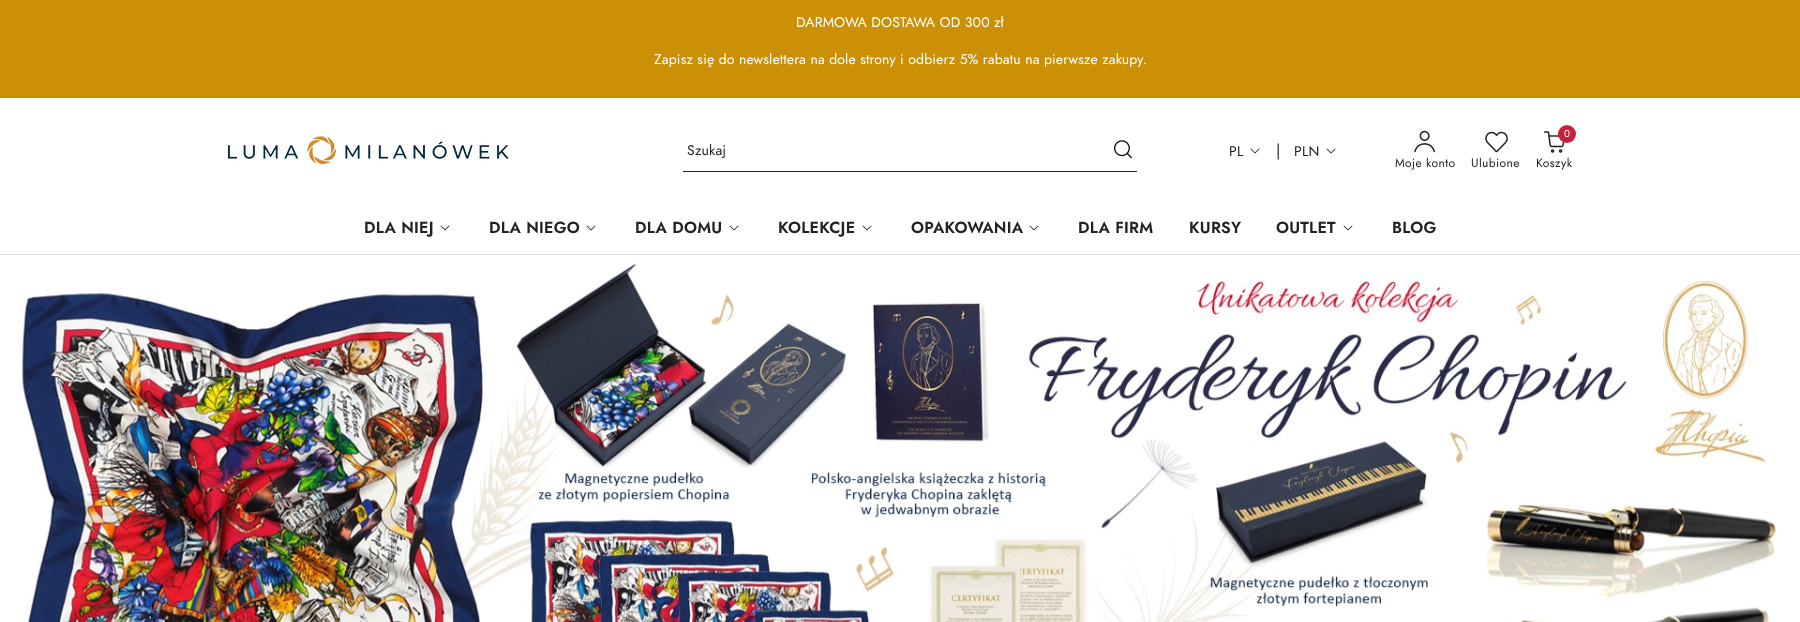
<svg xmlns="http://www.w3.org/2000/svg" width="1800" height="622">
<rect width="100%" height="100%" fill="#fff"/>
<rect width="1800" height="98" fill="#cb9006"/>
<text x="796" y="27" style="font-family:Jost;font-size:14px;letter-spacing:0.15px;fill:#fff">DARMOWA DOSTAWA OD 300 zł</text>
<text x="654" y="64" style="font-family:Jost;font-size:14px;letter-spacing:0.15px;fill:#fff">Zapisz się do newslettera na dole strony i odbierz 5% rabatu na pierwsze zakupy.</text>
<image x="227" y="136" width="282" height="29" href="media/1.png"/>
<rect x="683" y="171" width="454" height="1" fill="#222"/>
<text x="687" y="155" style="font-family:Jost;font-size:14px;letter-spacing:0.25px;fill:#222">Szukaj</text>
<image x="1114" y="140" width="18" height="19" href="media/2.png"/>
<text x="1229" y="156" style="font-family:Jost;font-size:14px;letter-spacing:0.25px;fill:#222">PL</text>
<image x="1250" y="148" width="10" height="6" href="media/3.png"/>
<text x="1276" y="156" style="font-family:Jost;font-size:16px;fill:#222">|</text>
<text x="1294" y="156" style="font-family:Jost;font-size:14px;letter-spacing:0.25px;fill:#222">PLN</text>
<image x="1326" y="148" width="10" height="6" href="media/3.png"/>
<image x="1414" y="130" width="21" height="23" href="media/4.png"/>
<text x="1395" y="167" style="font-family:Jost;font-size:12px;letter-spacing:0.4px;fill:#222">Moje konto</text>
<image x="1485" y="131" width="23" height="22" href="media/5.png"/>
<text x="1471" y="167" style="font-family:Jost;font-size:12px;letter-spacing:0.4px;fill:#222">Ulubione</text>
<image x="1543" y="131" width="22" height="22" href="media/6.png"/>
<circle cx="1567" cy="134" r="9" fill="#c5203d"/>
<text x="1564" y="137" style="font-family:Jost;font-size:10px;fill:#fff">0</text>
<text x="1536" y="167" style="font-family:Jost;font-size:12px;letter-spacing:0.4px;fill:#222">Koszyk</text>
<rect y="254" width="1800" height="1" fill="#ddd"/>
<text x="364" y="233" style="font-family:Jost;font-size:16px;font-weight:600;letter-spacing:0.25px;fill:#222">DLA NIEJ</text>
<image x="440" y="225" width="10" height="6" href="media/3.png"/>
<text x="489" y="233" style="font-family:Jost;font-size:16px;font-weight:600;letter-spacing:0.25px;fill:#222">DLA NIEGO</text>
<image x="586" y="225" width="10" height="6" href="media/3.png"/>
<text x="635" y="233" style="font-family:Jost;font-size:16px;font-weight:600;letter-spacing:0.25px;fill:#222">DLA DOMU</text>
<image x="729" y="225" width="10" height="6" href="media/3.png"/>
<text x="778" y="233" style="font-family:Jost;font-size:16px;font-weight:600;letter-spacing:0.25px;fill:#222">KOLEKCJE</text>
<image x="862" y="225" width="10" height="6" href="media/3.png"/>
<text x="911" y="233" style="font-family:Jost;font-size:16px;font-weight:600;letter-spacing:0.25px;fill:#222">OPAKOWANIA</text>
<image x="1029" y="225" width="10" height="6" href="media/3.png"/>
<text x="1078" y="233" style="font-family:Jost;font-size:16px;font-weight:600;letter-spacing:0.25px;fill:#222">DLA FIRM</text>
<text x="1189" y="233" style="font-family:Jost;font-size:16px;font-weight:600;letter-spacing:0.25px;fill:#222">KURSY</text>
<text x="1276" y="233" style="font-family:Jost;font-size:16px;font-weight:600;letter-spacing:0.25px;fill:#222">OUTLET</text>
<image x="1343" y="225" width="10" height="6" href="media/3.png"/>
<text x="1392" y="233" style="font-family:Jost;font-size:16px;font-weight:600;letter-spacing:0.25px;fill:#222">BLOG</text>
<image x="21" y="263" width="1756" height="359" href="media/7.png"/>
</svg>
